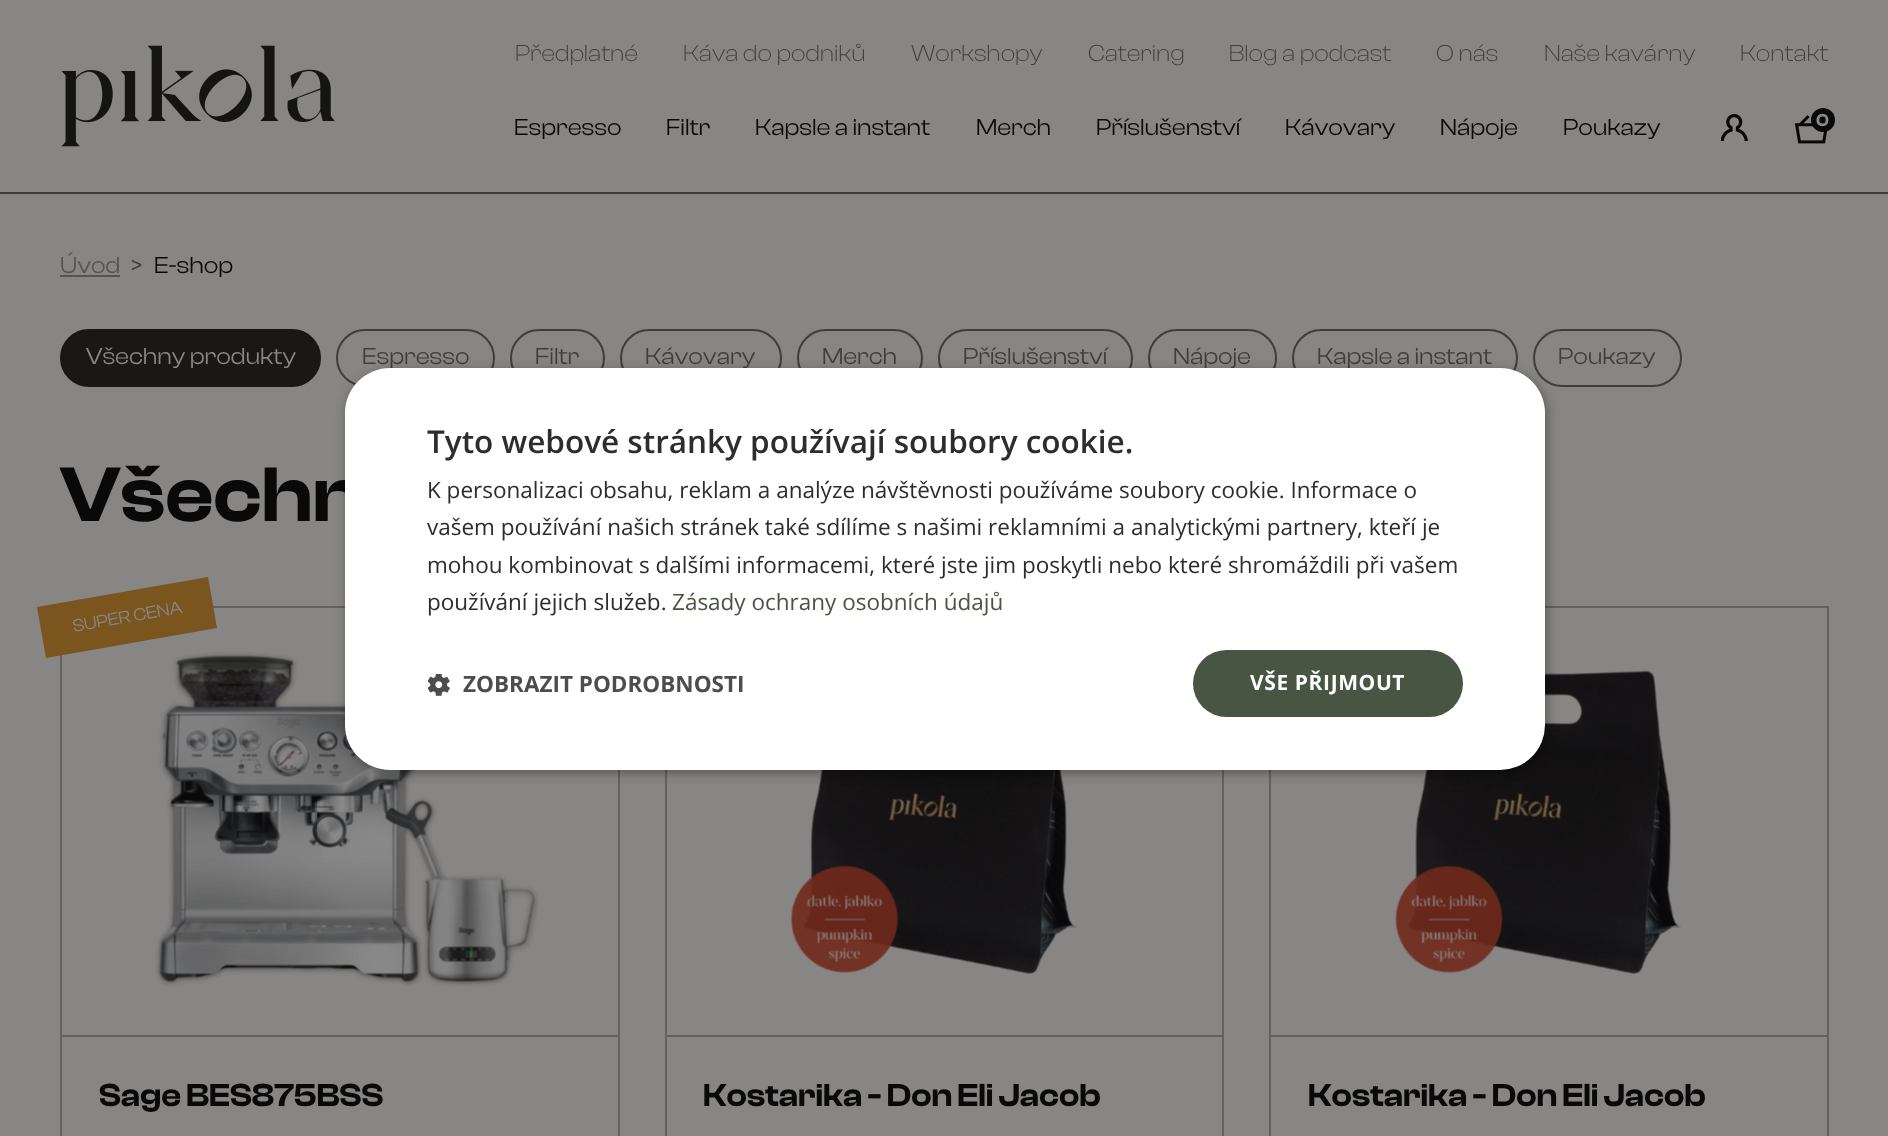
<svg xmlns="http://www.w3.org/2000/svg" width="1888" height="1136">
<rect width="100%" height="100%" fill="#888684"/>
<rect y="192" width="1888" height="2" fill="#423d38"/>
<image x="61" y="45" width="274" height="102" href="media/1.png"/>
<text x="515" y="61" style="font-family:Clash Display;font-size:24px;font-weight:300;fill:#423d38">Předplatné</text>
<text x="683" y="61" style="font-family:Clash Display;font-size:24px;font-weight:300;fill:#423d38">Káva do podniků</text>
<text x="911" y="61" style="font-family:Clash Display;font-size:24px;font-weight:300;fill:#423d38">Workshopy</text>
<text x="1088" y="61" style="font-family:Clash Display;font-size:24px;font-weight:300;fill:#423d38">Catering</text>
<text x="1229" y="61" style="font-family:Clash Display;font-size:24px;font-weight:300;fill:#423d38">Blog a podcast</text>
<text x="1436" y="61" style="font-family:Clash Display;font-size:24px;font-weight:300;fill:#423d38">O nás</text>
<text x="1544" y="61" style="font-family:Clash Display;font-size:24px;font-weight:300;fill:#423d38">Naše kavárny</text>
<text x="1740" y="61" style="font-family:Clash Display;font-size:24px;font-weight:300;fill:#423d38">Kontakt</text>
<text x="514" y="135" style="font-family:Clash Display;font-size:24px;fill:#090909">Espresso</text>
<text x="666" y="135" style="font-family:Clash Display;font-size:24px;fill:#090909">Filtr</text>
<text x="755" y="135" style="font-family:Clash Display;font-size:24px;fill:#090909">Kapsle a instant</text>
<text x="976" y="135" style="font-family:Clash Display;font-size:24px;fill:#090909">Merch</text>
<text x="1096" y="135" style="font-family:Clash Display;font-size:24px;fill:#090909">Příslušenství</text>
<text x="1285" y="135" style="font-family:Clash Display;font-size:24px;fill:#090909">Kávovary</text>
<text x="1440" y="135" style="font-family:Clash Display;font-size:24px;fill:#090909">Nápoje</text>
<text x="1563" y="135" style="font-family:Clash Display;font-size:24px;fill:#090909">Poukazy</text>
<image x="1721" y="114" width="27" height="27" href="media/2.png"/>
<image x="1794" y="115" width="34" height="29" href="media/3.png"/>
<circle cx="1823" cy="120" r="12" fill="#090909"/>
<text x="1816" y="126" style="font-family:Clash Display;font-size:18px;font-weight:600;fill:#888">0</text>
<text x="60" y="273" style="font-family:Clash Display;font-size:24px;fill:#57534f">Úvod</text>
<rect x="60" y="275" width="60" height="2" fill="#57534f"/>
<text x="131" y="273" style="font-family:Clash Display;font-size:24px;fill:#423d38">&gt;</text>
<text x="154" y="273" style="font-family:Clash Display;font-size:24px;fill:#090909">E-shop</text>
<rect x="61" y="330" width="259" height="56" rx="28" fill="#1a1816" stroke="#1a1816" stroke-width="2"/>
<text x="86" y="364" style="font-family:Clash Display;font-size:24px;fill:#888">Všechny produkty</text>
<rect x="337" y="330" width="157" height="56" rx="28" fill="none" stroke="#423d38" stroke-width="2"/>
<text x="362" y="364" style="font-family:Clash Display;font-size:24px;fill:#423d38">Espresso</text>
<rect x="511" y="330" width="93" height="56" rx="28" fill="none" stroke="#423d38" stroke-width="2"/>
<text x="535" y="364" style="font-family:Clash Display;font-size:24px;fill:#423d38">Filtr</text>
<rect x="621" y="330" width="160" height="56" rx="28" fill="none" stroke="#423d38" stroke-width="2"/>
<text x="645" y="364" style="font-family:Clash Display;font-size:24px;fill:#423d38">Kávovary</text>
<rect x="798" y="330" width="124" height="56" rx="28" fill="none" stroke="#423d38" stroke-width="2"/>
<text x="822" y="364" style="font-family:Clash Display;font-size:24px;fill:#423d38">Merch</text>
<rect x="939" y="330" width="193" height="56" rx="28" fill="none" stroke="#423d38" stroke-width="2"/>
<text x="963" y="364" style="font-family:Clash Display;font-size:24px;fill:#423d38">Příslušenství</text>
<rect x="1149" y="330" width="127" height="56" rx="28" fill="none" stroke="#423d38" stroke-width="2"/>
<text x="1173" y="364" style="font-family:Clash Display;font-size:24px;fill:#423d38">Nápoje</text>
<rect x="1293" y="330" width="224" height="56" rx="28" fill="none" stroke="#423d38" stroke-width="2"/>
<text x="1317" y="364" style="font-family:Clash Display;font-size:24px;fill:#423d38">Kapsle a instant</text>
<rect x="1534" y="330" width="147" height="56" rx="28" fill="none" stroke="#423d38" stroke-width="2"/>
<text x="1558" y="364" style="font-family:Clash Display;font-size:24px;fill:#423d38">Poukazy</text>
<text x="60" y="521" style="font-family:Clash Display;font-size:80px;font-weight:600;fill:#090909">Všechn</text>
<rect x="61" y="607" width="558" height="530" fill="none" stroke="#65615e" stroke-width="2"/>
<image x="155" y="652" width="384" height="334" href="media/4.png"/>
<path d="M37 607l171-30l9 51l-171 30z" fill="#7a551d"/>
<text x="74" y="632" transform="rotate(-10 74 632)" style="font-family:Clash Display;font-size:18px;fill:#888">SUPER CENA</text>
<rect x="62" y="1035" width="556" height="2" fill="#65615e"/>
<text x="99" y="1106" style="font-family:Clash Display;font-size:33px;font-weight:600;fill:#090909">Sage BES875BSS</text>
<rect x="666" y="607" width="557" height="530" fill="none" stroke="#65615e" stroke-width="2"/>
<rect x="666" y="1035" width="557" height="2" fill="#65615e"/>
<image x="791" y="770" width="286" height="204" href="media/5.png"/>
<text x="703" y="1106" style="font-family:Clash Display;font-size:33px;font-weight:600;fill:#090909">Kostarika - Don Eli Jacob</text>
<rect x="1270" y="607" width="558" height="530" fill="none" stroke="#65615e" stroke-width="2"/>
<rect x="1271" y="1035" width="556" height="2" fill="#65615e"/>
<image x="1395" y="670" width="286" height="304" href="media/6.png"/>
<text x="1308" y="1106" style="font-family:Clash Display;font-size:33px;font-weight:600;fill:#090909">Kostarika - Don Eli Jacob</text>
<rect x="347" y="371" width="1200" height="402" rx="45" fill="#00000059" filter="blur(6px)"/>
<rect x="345" y="368" width="1200" height="402" rx="45" fill="#fff"/>
<text x="427" y="453" style="font-family:Open Sans;font-size:31.5px;font-weight:600;fill:#2d2d2d">Tyto webové stránky používají soubory cookie.</text>
<text x="427" y="498" style="font-family:Open Sans;font-size:22.5px;fill:#2d2d2d">K personalizaci obsahu, reklam a analýze návštěvnosti používáme soubory cookie. Informace o</text>
<text x="427" y="535" style="font-family:Open Sans;font-size:22.5px;fill:#2d2d2d">vašem používání našich stránek také sdílíme s našimi reklamními a analytickými partnery, kteří je</text>
<text x="427" y="573" style="font-family:Open Sans;font-size:22.5px;fill:#2d2d2d">mohou kombinovat s dalšími informacemi, které jste jim poskytli nebo které shromáždili při vašem</text>
<text x="427" y="610" style="font-family:Open Sans;font-size:22.5px;fill:#2d2d2d">používání jejich služeb.</text>
<text x="672" y="610" style="font-family:Open Sans;font-size:22.5px;fill:#485543">Zásady ochrany osobních údajů</text>
<image x="428" y="674" width="22" height="22" href="media/7.png"/>
<text x="463" y="692" style="font-family:Open Sans;font-size:22.5px;font-weight:bold;fill:#4d4d4d">ZOBRAZIT PODROBNOSTI</text>
<rect x="1193" y="650" width="270" height="67" rx="33.5" fill="#485543"/>
<text x="1250" y="690" style="font-family:Open Sans;font-size:21px;font-weight:bold;letter-spacing:0.6px;fill:#fff">VŠE PŘIJMOUT</text>
</svg>
